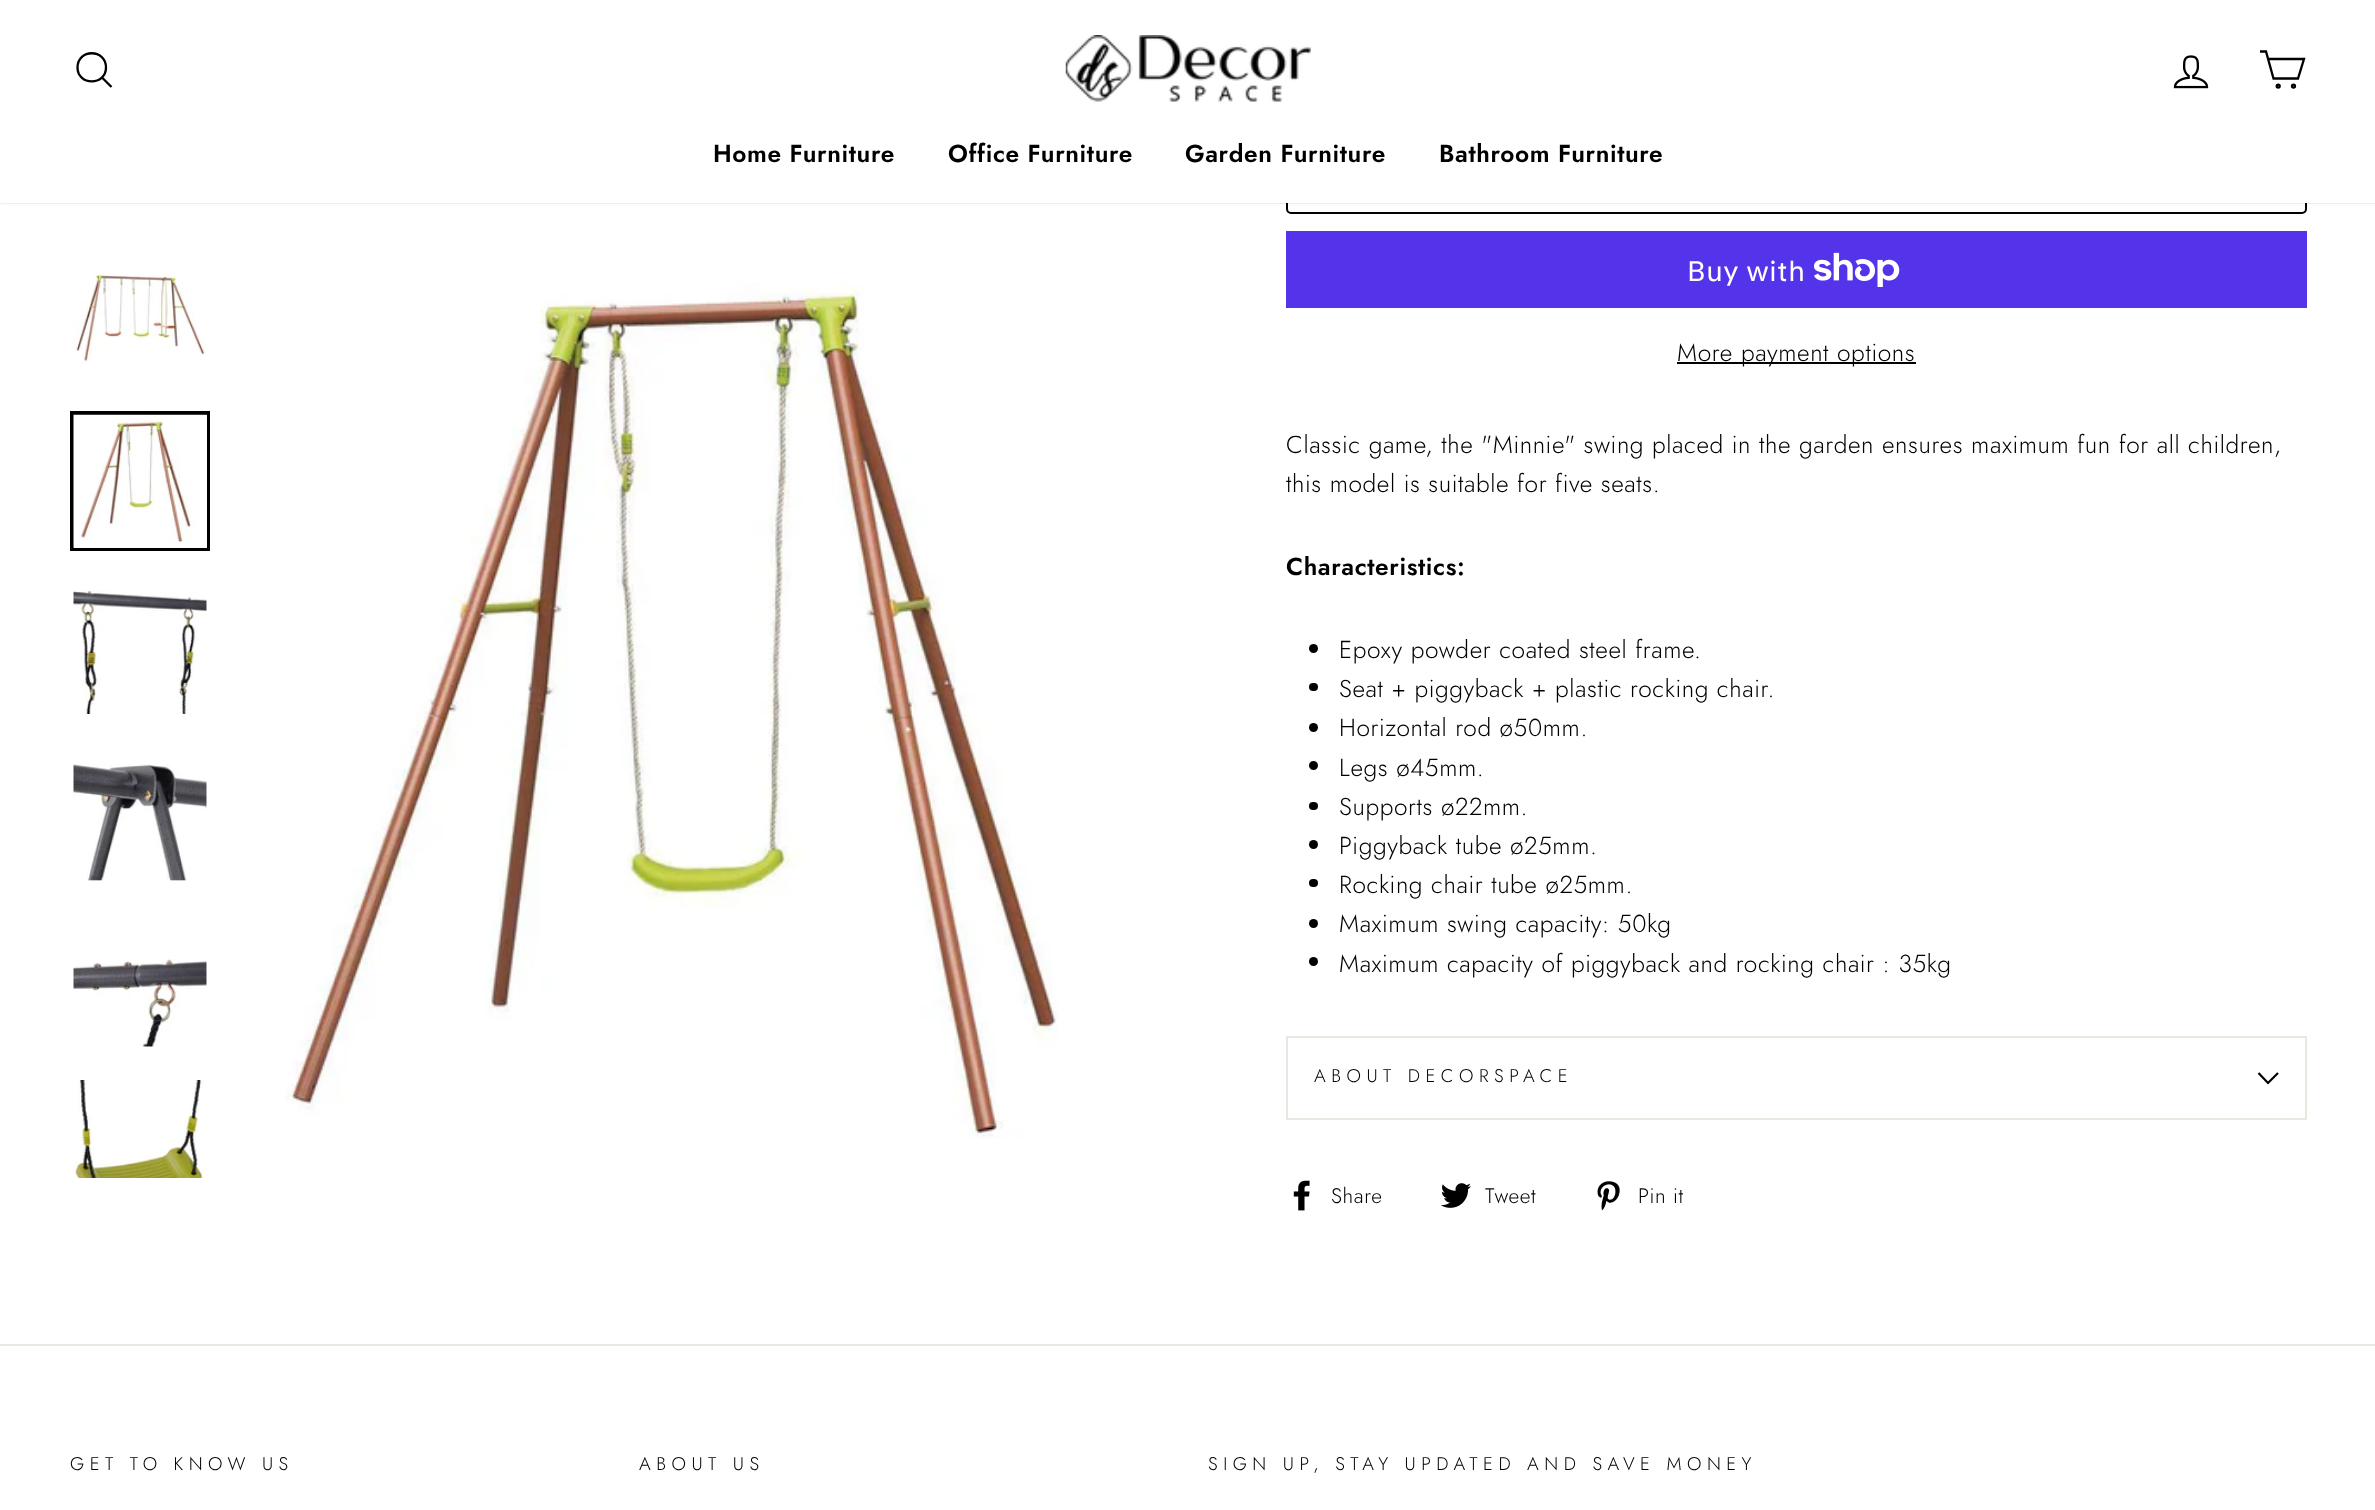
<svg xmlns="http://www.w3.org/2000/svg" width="2375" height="1510">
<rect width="100%" height="100%" fill="#fff"/>
<rect x="1287" y="127" width="1019" height="86" rx="4" fill="none" stroke="#000" stroke-width="2"/>
<rect width="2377" height="203" fill="#00000033" filter="blur(1px)"/>
<rect width="2375" height="203" fill="#fff"/>
<path d="M106 67.5c0 18.5-28.5 18.5-28.5 0c0-19 28.5-19 28.5 0zm5.5 19.5l-9.5-9.5" fill="none" stroke="#000" stroke-width="2.3"/>
<image x="1065" y="35" width="246" height="67" href="media/1.png"/>
<image x="2173" y="55" width="36" height="34" href="media/2.png"/>
<path d="M2268 59h36l-6 19.5h-24.5l-7.5-27h-6" fill="none" stroke="#000" stroke-width="2.3"/>
<circle cx="2278.2" cy="86.1" r="1.5" fill="none" stroke="#000" stroke-width="2.3"/>
<circle cx="2293.5" cy="86.1" r="1.5" fill="none" stroke="#000" stroke-width="2.3"/>
<text x="713" y="162" style="font-family:Jost;font-size:24.5px;font-weight:600;letter-spacing:0.6px;fill:#000">Home Furniture</text>
<text x="948" y="162" style="font-family:Jost;font-size:24.5px;font-weight:600;letter-spacing:0.6px;fill:#000">Office Furniture</text>
<text x="1185" y="162" style="font-family:Jost;font-size:24.5px;font-weight:600;letter-spacing:0.6px;fill:#000">Garden Furniture</text>
<text x="1439" y="162" style="font-family:Jost;font-size:24.5px;font-weight:600;letter-spacing:0.6px;fill:#000">Bathroom Furniture</text>
<image x="73" y="274" width="134" height="90" href="media/3.png"/>
<rect x="72" y="413" width="136" height="136" fill="none" stroke="#000" stroke-width="4"/>
<rect x="74" y="415" width="133" height="133" fill="#fff"/>
<image x="73" y="414" width="134" height="134" href="media/4.png"/>
<image x="73" y="590" width="134" height="124" href="media/5.png"/>
<image x="73" y="764" width="134" height="117" href="media/6.png"/>
<image x="73" y="959" width="134" height="88" href="media/7.png"/>
<image x="74" y="1080" width="130" height="98" href="media/8.png"/>
<image x="285" y="282" width="773" height="857" href="media/9.png"/>
<rect x="1286" y="231" width="1021" height="77" fill="#5433eb"/>
<text x="1687" y="281" style="font-family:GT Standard;font-size:28px;letter-spacing:0.6px;fill:#fff">Buy with</text>
<image x="1814" y="252" width="86" height="35" href="media/10.png"/>
<rect x="1677" y="362" width="239" height="2" fill="#000"/>
<text x="1677" y="361" style="font-family:Jost;font-size:24.5px;font-weight:300;letter-spacing:0.6px;fill:#000">More payment options</text>
<text x="1286" y="453" style="font-family:Jost;font-size:24.5px;font-weight:300;letter-spacing:0.6px;fill:#000">Classic game, the "Minnie" swing placed in the garden ensures maximum fun for all children,</text>
<text x="1286" y="492" style="font-family:Jost;font-size:24.5px;font-weight:300;letter-spacing:0.6px;fill:#000">this model is suitable for five seats.</text>
<text x="1286" y="575" style="font-family:Jost;font-size:24.5px;font-weight:600;letter-spacing:0.6px;fill:#000">Characteristics:</text>
<circle cx="1313.5" cy="648.5" r="4.5" fill="#000"/>
<text x="1339" y="658" style="font-family:Jost;font-size:24.5px;font-weight:300;letter-spacing:0.6px;fill:#000">Epoxy powder coated steel frame.</text>
<rect x="1309" y="683" width="9" height="8" rx="4" fill="#000"/>
<text x="1339" y="697" style="font-family:Jost;font-size:24.5px;font-weight:300;letter-spacing:0.6px;fill:#000">Seat + piggyback + plastic rocking chair.</text>
<circle cx="1313.5" cy="727.5" r="4.5" fill="#000"/>
<text x="1339" y="736" style="font-family:Jost;font-size:24.5px;font-weight:300;letter-spacing:0.6px;fill:#000">Horizontal rod ø50mm.</text>
<circle cx="1313.5" cy="765.5" r="4.5" fill="#000"/>
<text x="1339" y="776" style="font-family:Jost;font-size:24.5px;font-weight:300;letter-spacing:0.6px;fill:#000">Legs ø45mm.</text>
<rect x="1309" y="802" width="9" height="8" rx="4" fill="#000"/>
<text x="1339" y="815" style="font-family:Jost;font-size:24.5px;font-weight:300;letter-spacing:0.6px;fill:#000">Supports ø22mm.</text>
<circle cx="1313.5" cy="844.5" r="4.5" fill="#000"/>
<text x="1339" y="854" style="font-family:Jost;font-size:24.5px;font-weight:300;letter-spacing:0.6px;fill:#000">Piggyback tube ø25mm.</text>
<rect x="1309" y="879" width="9" height="8" rx="4" fill="#000"/>
<text x="1339" y="893" style="font-family:Jost;font-size:24.5px;font-weight:300;letter-spacing:0.6px;fill:#000">Rocking chair tube ø25mm.</text>
<circle cx="1313.5" cy="923.5" r="4.5" fill="#000"/>
<text x="1339" y="932" style="font-family:Jost;font-size:24.5px;font-weight:300;letter-spacing:0.6px;fill:#000">Maximum swing capacity: 50kg</text>
<circle cx="1313.5" cy="961.5" r="4.5" fill="#000"/>
<text x="1339" y="972" style="font-family:Jost;font-size:24.5px;font-weight:300;letter-spacing:0.6px;fill:#000">Maximum capacity of piggyback and rocking chair : 35kg</text>
<rect x="1286" y="1118" width="1021" height="2" fill="#e8e8e1"/>
<rect x="1286" y="1036" width="1021" height="2" fill="#e8e8e1"/>
<rect x="2305" y="1036" width="2" height="82" fill="#e8e8e1"/>
<rect x="1286" y="1036" width="2" height="82" fill="#e8e8e1"/>
<text x="1314" y="1082" style="font-family:Jost;font-size:18.4px;font-weight:300;letter-spacing:5.5px;fill:#000">ABOUT DECORSPACE</text>
<path d="M2258.5 1073l9.5 10l10-10" fill="none" stroke="#000" stroke-width="2.2"/>
<image x="1293" y="1180" width="17" height="31" href="media/11.png"/>
<text x="1331" y="1203" style="font-family:Jost;font-size:21px;font-weight:300;letter-spacing:0.6px;fill:#000">Share</text>
<image x="1441" y="1183" width="30" height="25" href="media/12.png"/>
<text x="1485" y="1203" style="font-family:Jost;font-size:21px;font-weight:300;letter-spacing:0.6px;fill:#000">Tweet</text>
<image x="1597" y="1181" width="23" height="30" href="media/13.png"/>
<text x="1638" y="1203" style="font-family:Jost;font-size:21px;font-weight:300;letter-spacing:0.6px;fill:#000">Pin it</text>
<rect y="1344" width="2375" height="2" fill="#e8e8e1"/>
<text x="70" y="1470" style="font-family:Jost;font-size:18.4px;font-weight:300;letter-spacing:5.5px;fill:#000">GET TO KNOW US</text>
<text x="639" y="1470" style="font-family:Jost;font-size:18.4px;font-weight:300;letter-spacing:5.5px;fill:#000">ABOUT US</text>
<text x="1208" y="1470" style="font-family:Jost;font-size:18.4px;font-weight:300;letter-spacing:5.5px;fill:#000">SIGN UP, STAY UPDATED AND SAVE MONEY</text>
</svg>
